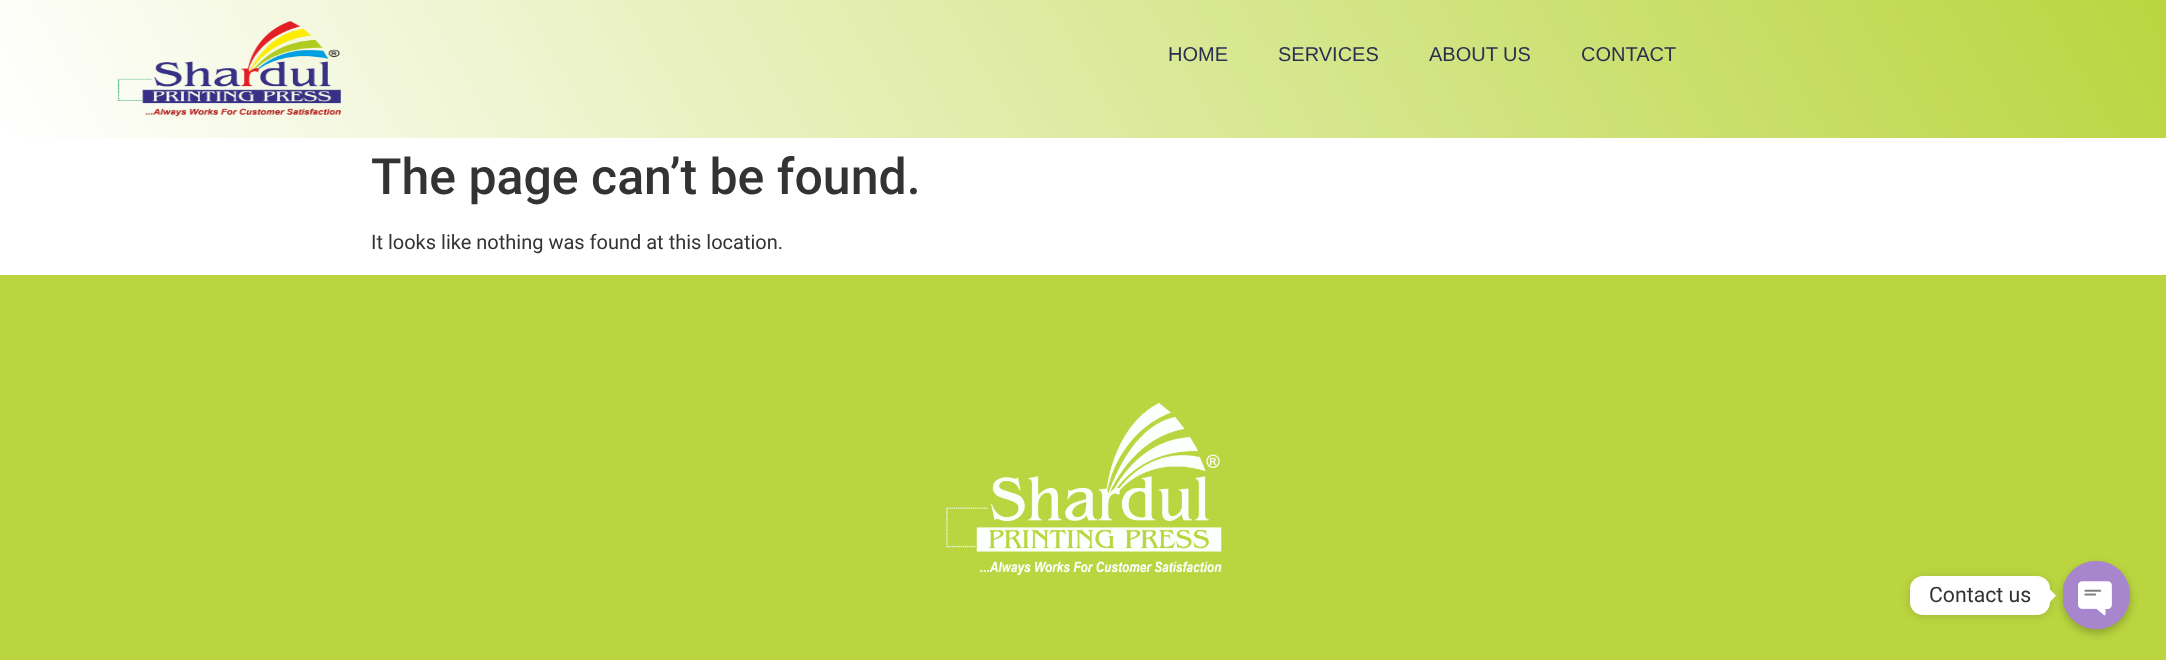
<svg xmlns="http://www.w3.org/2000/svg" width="2166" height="660">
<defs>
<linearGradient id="g1" gradientUnits="userSpaceOnUse" x1="1925" y1="-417" x2="241" y2="555"><stop offset="0" stop-color="#bbd540"/><stop offset="1" stop-color="#fff"/></linearGradient>
</defs>
<rect width="100%" height="100%" fill="#fff"/>
<rect width="2166" height="138" fill="url(#g1)"/>
<image x="117" y="21" width="224" height="96" href="media/1.png"/>
<text x="1168" y="61" style="font-family:Liberation Sans;font-size:20px;fill:#292f4f">HOME</text>
<text x="1278" y="61" style="font-family:Liberation Sans;font-size:20px;fill:#292f4f">SERVICES</text>
<text x="1429" y="61" style="font-family:Liberation Sans;font-size:20px;fill:#292f4f">ABOUT US</text>
<text x="1581" y="61" style="font-family:Liberation Sans;font-size:20px;fill:#292f4f">CONTACT</text>
<text x="371" y="194" style="font-family:Roboto;font-size:50px;font-weight:500;fill:#333">The page can’t be found.</text>
<text x="371" y="249" style="font-family:Roboto;font-size:20px;fill:#333">It looks like nothing was found at this location.</text>
<rect y="275" width="2166" height="385" fill="#bbd540"/>
<image x="946" y="403" width="276" height="173" href="media/2.png"/>
<rect x="1910" y="578" width="140" height="38" rx="13" fill="#00000026" filter="blur(5px)"/>
<rect x="1910" y="576" width="140" height="39" rx="13" fill="#fff"/>
<text x="1929" y="602" style="font-family:Roboto;font-size:21.25px;fill:#333">Contact us</text>
<path d="M2050 602v-12.5l6 6z" fill="#fff"/>
<rect x="2063" y="565" width="67" height="68" rx="33.5" fill="#00000040" filter="blur(4px)"/>
<rect x="2063" y="561" width="67" height="68" rx="33.5" fill="#a886cd"/>
<image x="2063" y="561" width="67" height="68" href="media/3.png"/>
</svg>
